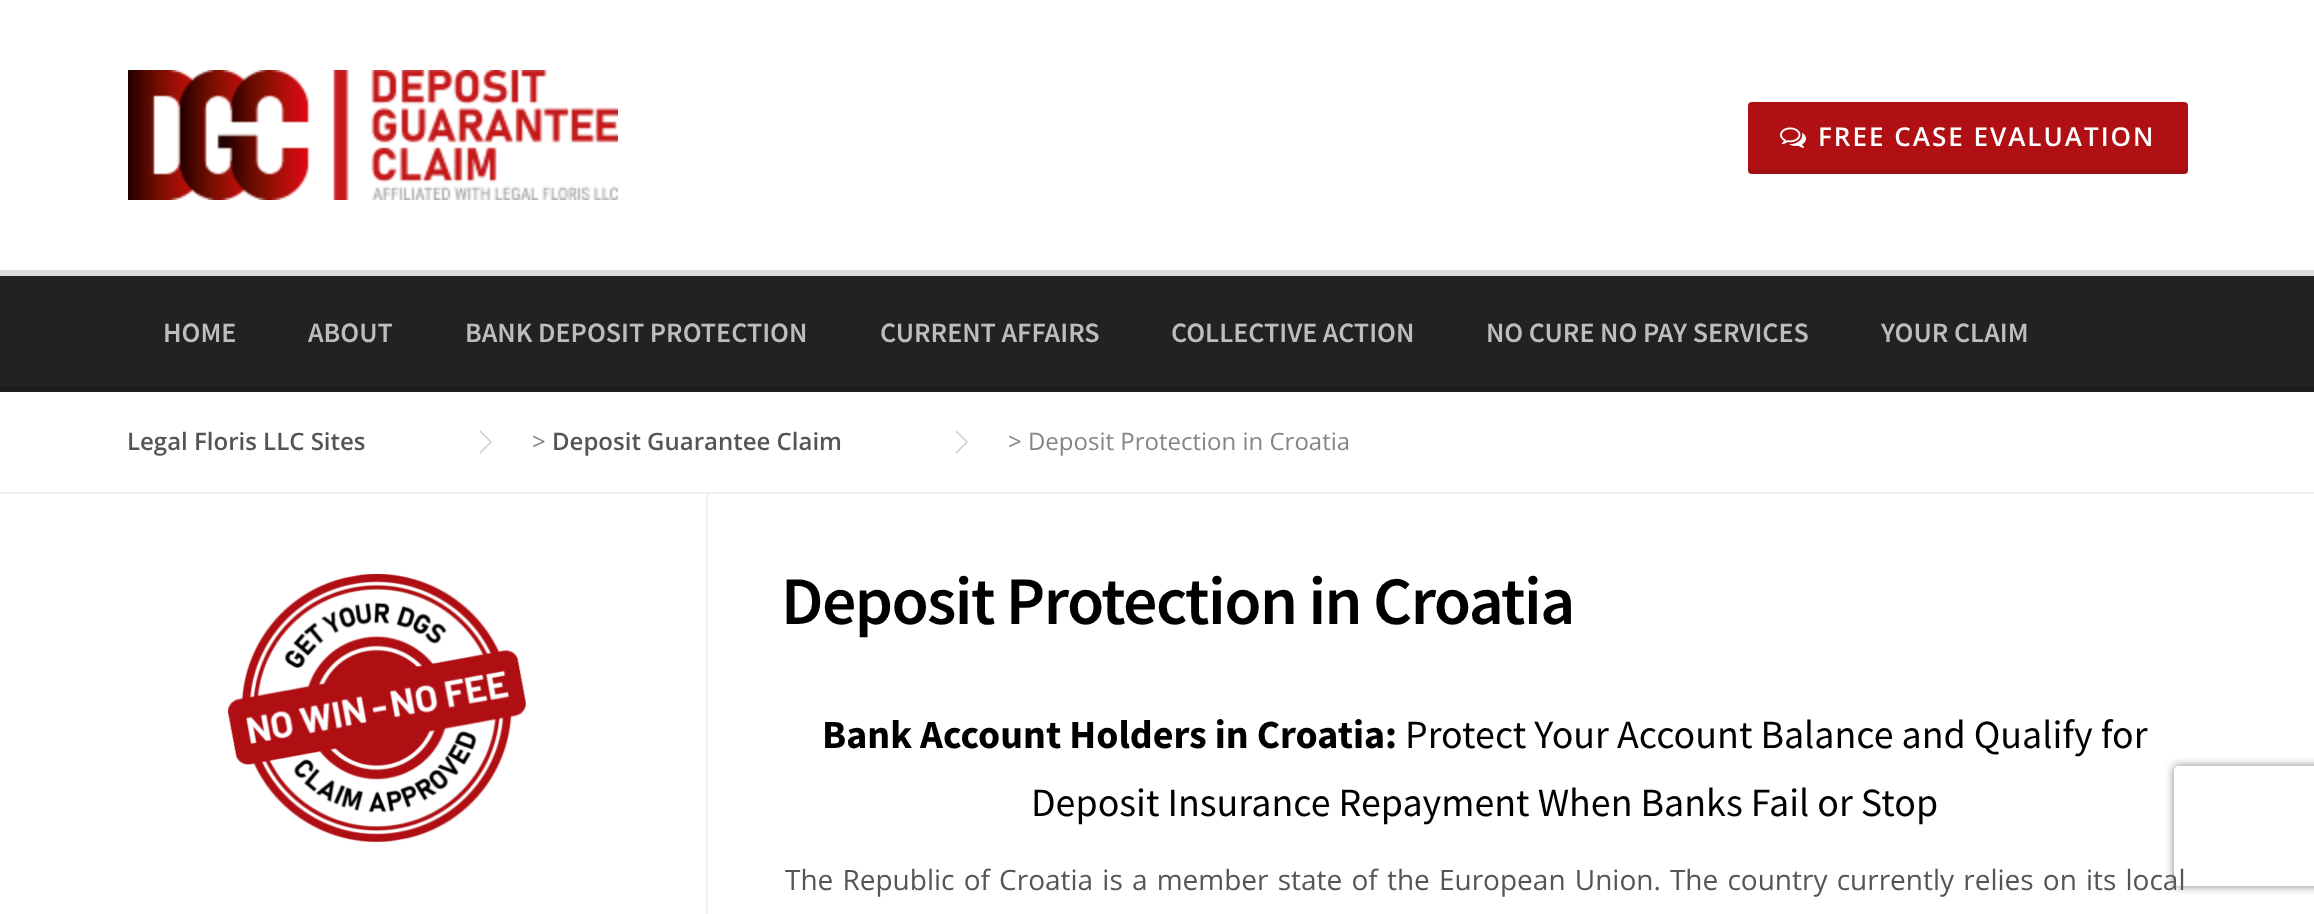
<svg xmlns="http://www.w3.org/2000/svg" width="2314" height="914">
<defs>
<clipPath id="clip1"><path d="M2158 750h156v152h-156zm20 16h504c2 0 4 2 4 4v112c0 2-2 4-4 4h-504c-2 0-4-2-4-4v-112c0-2 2-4 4-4z" clip-rule="evenodd"/></clipPath>
</defs>
<rect width="100%" height="100%" fill="#fff"/>
<image x="128" y="70" width="490" height="130" href="media/1.png"/>
<rect x="1748" y="102" width="440" height="72" rx="4" fill="#b00f14"/>
<path d="M1748 166v4c0 2 2 4 4 4h432c2 0 4-2 4-4v-4c0 2-2 4-4 4h-432c-2 0-4-2-4-4z" fill="#0000001a"/>
<image x="1780" y="127" width="26" height="21" href="media/2.png"/>
<text x="1818" y="146" style="font-family:Open Sans;font-size:26px;font-weight:600;letter-spacing:2px;fill:#fff">FREE CASE EVALUATION</text>
<rect y="276" width="2314" height="110" fill="#222"/>
<rect y="270" width="2314" height="6" fill="#ddd"/>
<text x="163" y="342" style="font-family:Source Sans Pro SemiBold;font-size:28px;font-weight:600;fill:#bdbdbd">HOME</text>
<text x="308" y="342" style="font-family:Source Sans Pro SemiBold;font-size:28px;font-weight:600;fill:#bdbdbd">ABOUT</text>
<text x="465" y="342" style="font-family:Source Sans Pro SemiBold;font-size:28px;font-weight:600;fill:#bdbdbd">BANK DEPOSIT PROTECTION</text>
<text x="880" y="342" style="font-family:Source Sans Pro SemiBold;font-size:28px;font-weight:600;fill:#bdbdbd">CURRENT AFFAIRS</text>
<text x="1171" y="342" style="font-family:Source Sans Pro SemiBold;font-size:28px;font-weight:600;fill:#bdbdbd">COLLECTIVE ACTION</text>
<text x="1486" y="342" style="font-family:Source Sans Pro SemiBold;font-size:28px;font-weight:600;fill:#bdbdbd">NO CURE NO PAY SERVICES</text>
<text x="1881" y="342" style="font-family:Source Sans Pro SemiBold;font-size:28px;font-weight:600;fill:#bdbdbd">YOUR CLAIM</text>
<rect y="386" width="2314" height="6" fill="#1d1d1d"/>
<rect y="492" width="2314" height="2" fill="#f0f0f0"/>
<text x="127" y="450" style="font-family:Open Sans;font-size:24px;font-weight:600;fill:#555">Legal Floris LLC Sites</text>
<path d="M480 454v-24l12 12z" fill="#ccc"/>
<path d="M480 452v-20l10 10z" fill="#fff"/>
<text x="532" y="450" style="font-family:Open Sans;font-size:24px;fill:#858585">&gt;</text>
<text x="552" y="450" style="font-family:Open Sans;font-size:24px;font-weight:600;fill:#555">Deposit Guarantee Claim</text>
<path d="M956 454v-24l12 12z" fill="#ccc"/>
<path d="M956 452v-20l10 10z" fill="#fff"/>
<text x="1008" y="450" style="font-family:Open Sans;font-size:24px;fill:#858585">&gt; Deposit Protection in Croatia</text>
<image x="228" y="574" width="298" height="268" href="media/3.png"/>
<rect x="706" y="494" width="2" height="420" fill="#f0f0f0"/>
<text x="781" y="624" style="font-family:Source Sans Pro SemiBold;font-size:68px;font-weight:600;letter-spacing:-1.6px;fill:#000">Deposit Protection in Croatia</text>
<text x="822" y="748" style="font-family:Source Sans Pro;font-size:40px;font-weight:bold;fill:#000">Bank Account Holders in Croatia:</text>
<text x="1405" y="748" style="font-family:Source Sans Pro;font-size:40px;fill:#000">Protect Your Account Balance and Qualify for</text>
<text x="1031" y="816" style="font-family:Source Sans Pro;font-size:40px;fill:#000">Deposit Insurance Repayment When Banks Fail or Stop</text>
<text x="785" y="890" word-spacing="1.9" style="font-family:Open Sans;font-size:28px;fill:#555">The Republic of Croatia is a member state of the European Union. The country currently relies on its local</text>
<g clip-path="url(#clip1)">
<rect x="2174" y="766" width="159" height="120" rx="4" fill="#808080" filter="blur(5px)"/>
</g>
</svg>
